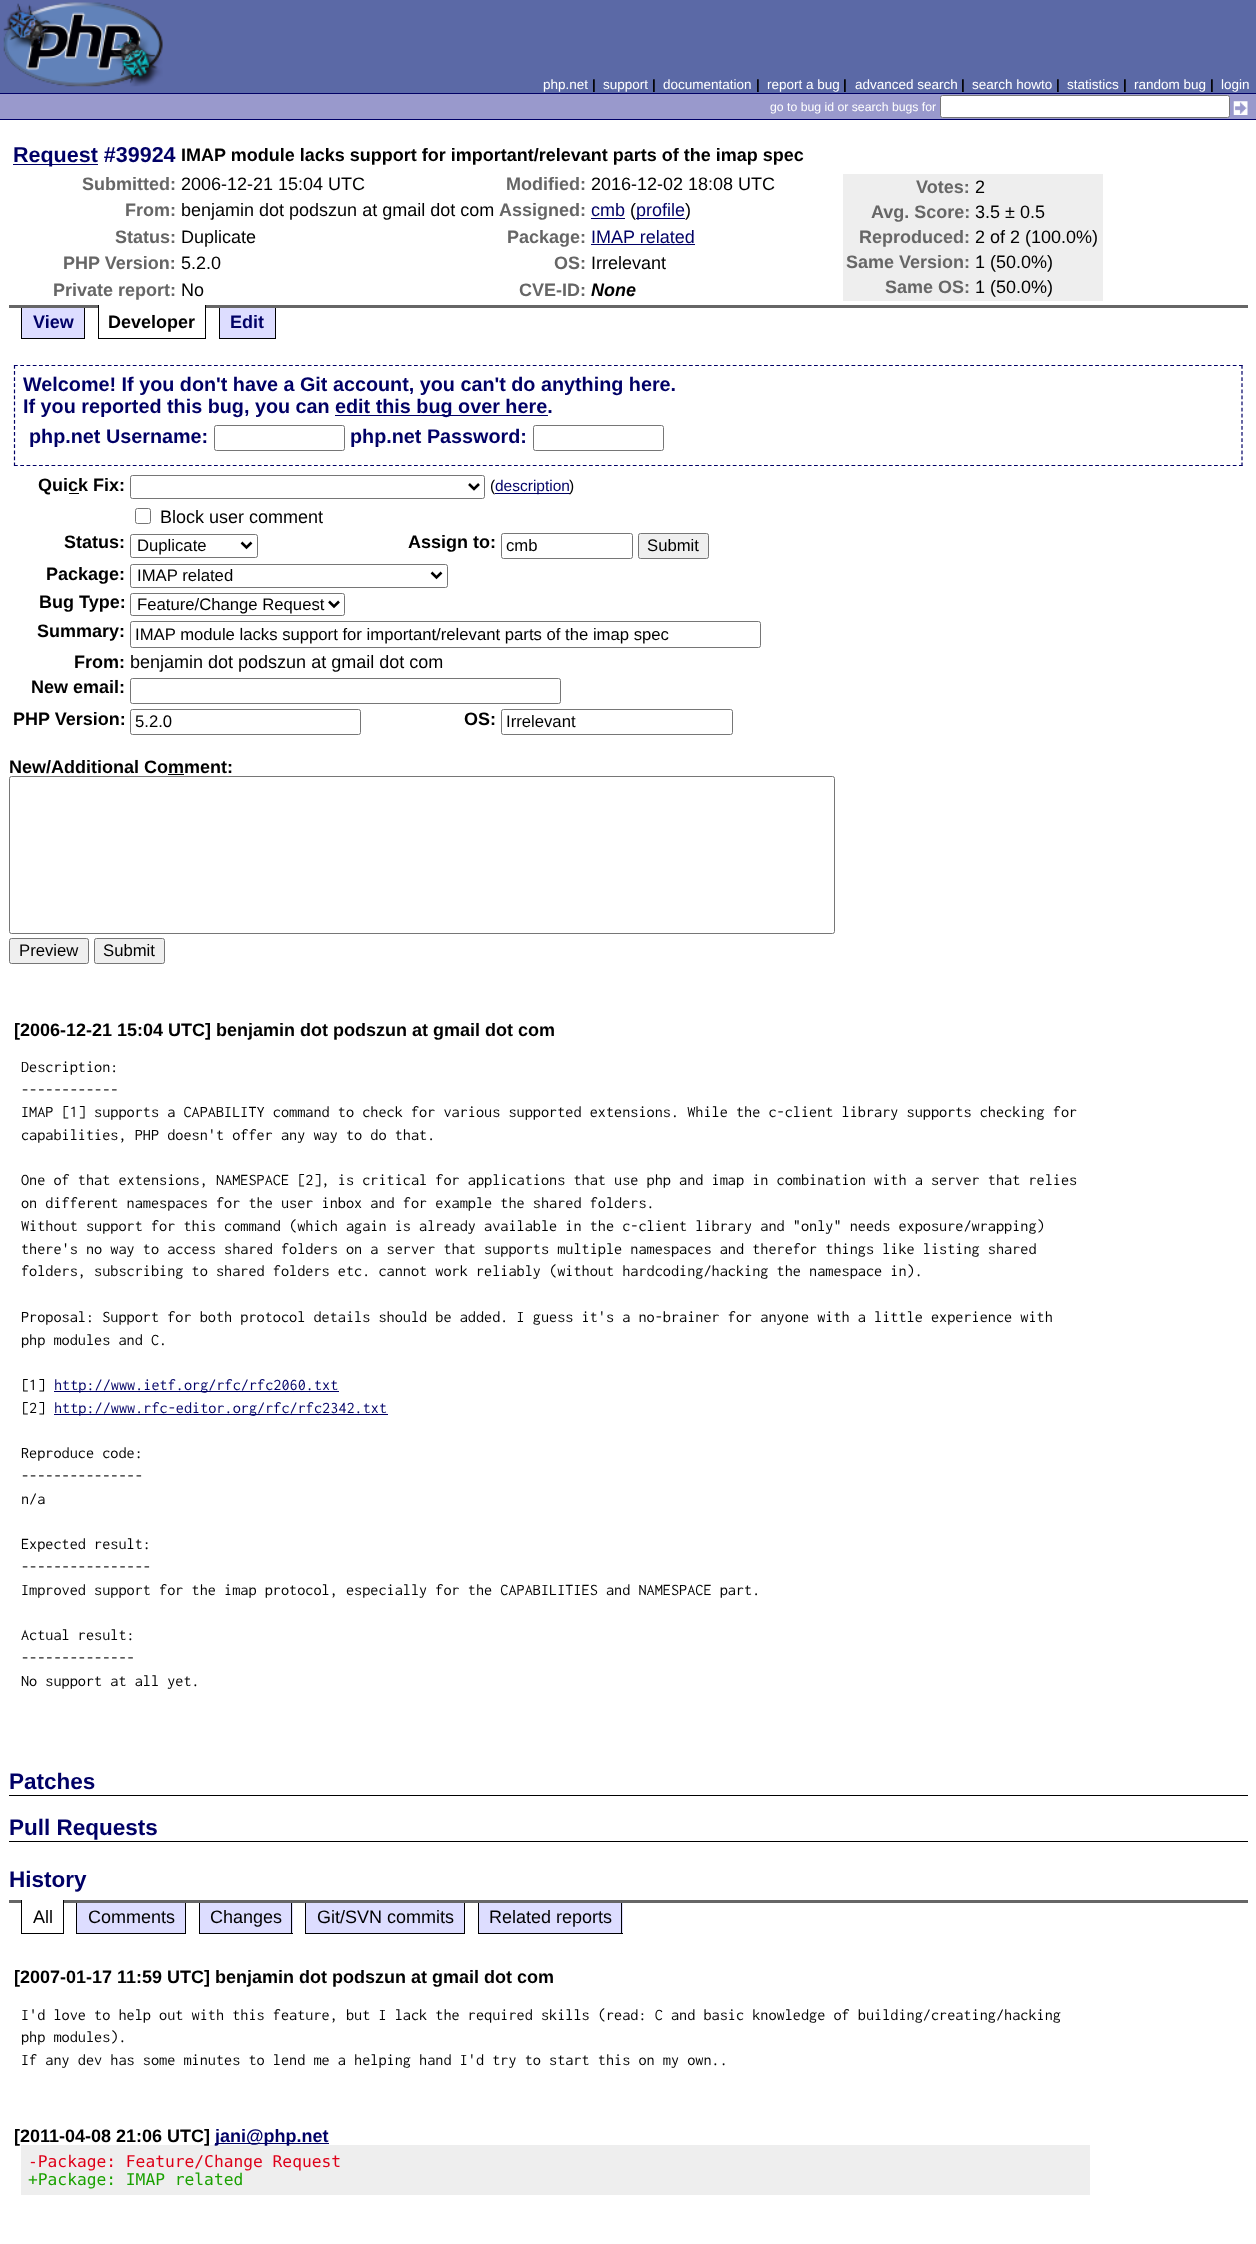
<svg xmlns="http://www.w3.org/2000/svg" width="1256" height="2244">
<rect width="100%" height="100%" fill="#fff"/>
<rect width="1256" height="93" fill="#5b69a6"/>
<image x="3" y="2" width="160" height="85" href="media/1.png"/>
<text x="543" y="89" style="font-family:Liberation Sans;font-size:13.5px;fill:#fff">php.net</text>
<text x="592" y="89" style="font-family:Liberation Sans;font-size:13.5px;font-weight:bold;fill:#000">|</text>
<text x="603" y="89" style="font-family:Liberation Sans;font-size:13.5px;fill:#fff">support</text>
<text x="652" y="89" style="font-family:Liberation Sans;font-size:13.5px;font-weight:bold;fill:#000">|</text>
<text x="663" y="89" style="font-family:Liberation Sans;font-size:13.5px;fill:#fff">documentation</text>
<text x="756" y="89" style="font-family:Liberation Sans;font-size:13.5px;font-weight:bold;fill:#000">|</text>
<text x="767" y="89" style="font-family:Liberation Sans;font-size:13.5px;fill:#fff">report a bug</text>
<text x="843" y="89" style="font-family:Liberation Sans;font-size:13.5px;font-weight:bold;fill:#000">|</text>
<text x="855" y="89" style="font-family:Liberation Sans;font-size:13.5px;fill:#fff">advanced search</text>
<text x="961" y="89" style="font-family:Liberation Sans;font-size:13.5px;font-weight:bold;fill:#000">|</text>
<text x="972" y="89" style="font-family:Liberation Sans;font-size:13.5px;fill:#fff">search howto</text>
<text x="1056" y="89" style="font-family:Liberation Sans;font-size:13.5px;font-weight:bold;fill:#000">|</text>
<text x="1067" y="89" style="font-family:Liberation Sans;font-size:13.5px;fill:#fff">statistics</text>
<text x="1123" y="89" style="font-family:Liberation Sans;font-size:13.5px;font-weight:bold;fill:#000">|</text>
<text x="1134" y="89" style="font-family:Liberation Sans;font-size:13.5px;fill:#fff">random bug</text>
<text x="1210" y="89" style="font-family:Liberation Sans;font-size:13.5px;font-weight:bold;fill:#000">|</text>
<text x="1221" y="89" style="font-family:Liberation Sans;font-size:13.5px;fill:#fff">login</text>
<rect y="94" width="1256" height="25" fill="#99c"/>
<rect y="93" width="1256" height="1" fill="#006"/>
<rect y="119" width="1256" height="1" fill="#006"/>
<text x="770" y="111" style="font-family:Liberation Sans;font-size:12.25px;fill:#fff">go to bug id or search bugs for</text>
<rect x="940.5" y="95.5" width="289" height="22" rx="2" fill="#fff" stroke="#767676"/>
<image x="1233" y="101" width="15" height="14" href="media/2.png"/>
<rect x="9" y="305" width="1239" height="3" fill="#666"/>
<rect x="13" y="164" width="85" height="1" fill="#006"/>
<text x="13" y="162" style="font-family:Liberation Sans;font-size:21.5px;font-weight:bold;fill:#006">Request #39924</text>
<text x="181" y="161" style="font-family:Liberation Sans;font-size:18px;font-weight:bold;fill:#000">IMAP module lacks support for important/relevant parts of the imap spec</text>
<text x="82" y="190" style="font-family:Liberation Sans;font-size:18px;font-weight:bold;fill:#666">Submitted:</text>
<text x="181" y="190" style="font-family:Liberation Sans;font-size:18px;fill:#000">2006-12-21 15:04 UTC</text>
<text x="506" y="190" style="font-family:Liberation Sans;font-size:18px;font-weight:bold;fill:#666">Modified:</text>
<text x="591" y="190" style="font-family:Liberation Sans;font-size:18px;fill:#000">2016-12-02 18:08 UTC</text>
<rect x="843" y="174" width="260" height="127" fill="#eee"/>
<text x="916" y="193" style="font-family:Liberation Sans;font-size:18px;font-weight:bold;fill:#666">Votes:</text>
<text x="975" y="193" style="font-family:Liberation Sans;font-size:18px;fill:#000">2</text>
<text x="871" y="218" style="font-family:Liberation Sans;font-size:18px;font-weight:bold;fill:#666">Avg. Score:</text>
<text x="975" y="218" style="font-family:Liberation Sans;font-size:18px;fill:#000">3.5 ± 0.5</text>
<text x="859" y="243" style="font-family:Liberation Sans;font-size:18px;font-weight:bold;fill:#666">Reproduced:</text>
<text x="975" y="243" style="font-family:Liberation Sans;font-size:18px;fill:#000">2 of 2 (100.0%)</text>
<text x="846" y="268" style="font-family:Liberation Sans;font-size:18px;font-weight:bold;fill:#666">Same Version:</text>
<text x="975" y="268" style="font-family:Liberation Sans;font-size:18px;fill:#000">1 (50.0%)</text>
<text x="885" y="293" style="font-family:Liberation Sans;font-size:18px;font-weight:bold;fill:#666">Same OS:</text>
<text x="975" y="293" style="font-family:Liberation Sans;font-size:18px;fill:#000">1 (50.0%)</text>
<text x="125" y="216" style="font-family:Liberation Sans;font-size:18px;font-weight:bold;fill:#666">From:</text>
<text x="181" y="216" style="font-family:Liberation Sans;font-size:18px;fill:#000">benjamin dot podszun at gmail dot com</text>
<text x="499" y="216" style="font-family:Liberation Sans;font-size:18px;font-weight:bold;fill:#666">Assigned:</text>
<text x="591" y="216" style="font-family:Liberation Sans;font-size:18px;fill:#006">cmb</text>
<rect x="591" y="218" width="34" height="1" fill="#006"/>
<text x="630" y="216" style="font-family:Liberation Sans;font-size:18px;fill:#000">(</text>
<rect x="636" y="218" width="49" height="1" fill="#006"/>
<text x="636" y="216" style="font-family:Liberation Sans;font-size:18px;fill:#006">profile</text>
<text x="685" y="216" style="font-family:Liberation Sans;font-size:18px;fill:#000">)</text>
<text x="115" y="243" style="font-family:Liberation Sans;font-size:18px;font-weight:bold;fill:#666">Status:</text>
<text x="181" y="243" style="font-family:Liberation Sans;font-size:18px;fill:#000">Duplicate</text>
<text x="507" y="243" style="font-family:Liberation Sans;font-size:18px;font-weight:bold;fill:#666">Package:</text>
<text x="591" y="243" style="font-family:Liberation Sans;font-size:18px;fill:#006">IMAP related</text>
<rect x="591" y="244" width="104" height="1" fill="#006"/>
<text x="63" y="269" style="font-family:Liberation Sans;font-size:18px;font-weight:bold;fill:#666">PHP Version:</text>
<text x="181" y="269" style="font-family:Liberation Sans;font-size:18px;fill:#000">5.2.0</text>
<text x="554" y="269" style="font-family:Liberation Sans;font-size:18px;font-weight:bold;fill:#666">OS:</text>
<text x="591" y="269" style="font-family:Liberation Sans;font-size:18px;fill:#000">Irrelevant</text>
<text x="53" y="296" style="font-family:Liberation Sans;font-size:18px;font-weight:bold;fill:#666">Private report:</text>
<text x="181" y="296" style="font-family:Liberation Sans;font-size:18px;fill:#000">No</text>
<text x="519" y="296" style="font-family:Liberation Sans;font-size:18px;font-weight:bold;fill:#666">CVE-ID:</text>
<text x="591" y="296" style="font-family:Liberation Sans;font-size:18px;font-weight:bold;font-style:italic;fill:#000">None</text>
<rect x="22" y="308" width="62" height="30" fill="#ddf"/>
<rect x="84" y="308" width="1" height="31" fill="#000"/>
<rect x="21" y="338" width="64" height="1" fill="#000"/>
<rect x="21" y="308" width="1" height="31" fill="#000"/>
<text x="33" y="328" style="font-family:Liberation Sans;font-size:18px;font-weight:bold;fill:#006">View</text>
<rect x="99" y="305" width="106" height="3" fill="#fff"/>
<rect x="205" y="305" width="1" height="34" fill="#000"/>
<rect x="98" y="338" width="108" height="1" fill="#000"/>
<rect x="98" y="305" width="1" height="34" fill="#000"/>
<text x="108" y="328" style="font-family:Liberation Sans;font-size:18px;font-weight:bold;fill:#000">Developer</text>
<rect x="220" y="308" width="55" height="30" fill="#ddf"/>
<rect x="275" y="308" width="1" height="31" fill="#000"/>
<rect x="219" y="338" width="57" height="1" fill="#000"/>
<rect x="219" y="308" width="1" height="31" fill="#000"/>
<text x="230" y="328" style="font-family:Liberation Sans;font-size:18px;font-weight:bold;fill:#006">Edit</text>
<path d="M14 365.5h1228.5" fill="none" stroke="#006" stroke-width="1.2" stroke-dasharray="3.75 2.5"/>
<path d="M1242 365v101" fill="none" stroke="#006" stroke-width="1.2" stroke-dasharray="3.75 2.35"/>
<path d="M14 465.5h1228.5" fill="none" stroke="#006" stroke-width="1.2" stroke-dasharray="3.75 2.5"/>
<path d="M14.5 365v101" fill="none" stroke="#006" stroke-width="1.2" stroke-dasharray="3.75 2.35"/>
<text x="23" y="391" style="font-family:Liberation Sans;font-size:19.8px;font-weight:bold;fill:#006">Welcome! If you don't have a Git account, you can't do anything here.</text>
<text x="23" y="413" style="font-family:Liberation Sans;font-size:19.8px;font-weight:bold;fill:#006">If you reported this bug, you can</text>
<rect x="335" y="415" width="213" height="1" fill="#006"/>
<text x="335" y="413" style="font-family:Liberation Sans;font-size:19.8px;font-weight:bold;fill:#006">edit this bug over here.</text>
<text x="29" y="443" style="font-family:Liberation Sans;font-size:19.8px;font-weight:bold;fill:#006">php.net Username:</text>
<rect x="214.5" y="425.5" width="130" height="25" rx="2" fill="none" stroke="#767676"/>
<text x="350" y="443" style="font-family:Liberation Sans;font-size:19.8px;font-weight:bold;fill:#006">php.net Password:</text>
<rect x="533.5" y="425.5" width="130" height="25" rx="2" fill="none" stroke="#767676"/>
<text x="38" y="491" style="font-family:Liberation Sans;font-size:18px;font-weight:bold;fill:#000">Quick Fix:</text>
<rect x="69" y="493" width="10" height="1" fill="#000"/>
<rect x="130.5" y="475.5" width="354" height="23" rx="2" fill="none" stroke="#767676"/>
<path d="M469 484l5 5l5-5" fill="none" stroke="#000" stroke-width="2.5"/>
<text x="490" y="491" style="font-family:Liberation Sans;font-size:15.5px;fill:#000">(</text>
<rect x="495" y="493" width="75" height="1" fill="#006"/>
<text x="495" y="491" style="font-family:Liberation Sans;font-size:15.5px;fill:#006">description</text>
<text x="569" y="491" style="font-family:Liberation Sans;font-size:15.5px;fill:#000">)</text>
<rect x="135.5" y="508.5" width="15" height="15" rx="2" fill="none" stroke="#767676"/>
<text x="160" y="523" style="font-family:Liberation Sans;font-size:18px;fill:#000">Block user comment</text>
<text x="64" y="548" style="font-family:Liberation Sans;font-size:18px;font-weight:bold;fill:#000">Status:</text>
<rect x="130.5" y="534.5" width="127" height="23" rx="2" fill="none" stroke="#767676"/>
<path d="M241.5 542.5l5 5l5-5" fill="none" stroke="#000" stroke-width="2.5"/>
<text x="137" y="551" style="font-family:Liberation Sans;font-size:16.7px;fill:#000">Duplicate</text>
<text x="408" y="548" style="font-family:Liberation Sans;font-size:18px;font-weight:bold;fill:#000">Assign to:</text>
<rect x="501.5" y="533.5" width="131" height="25" rx="2" fill="none" stroke="#767676"/>
<text x="506" y="551" style="font-family:Liberation Sans;font-size:16.7px;fill:#000">cmb</text>
<rect x="638.5" y="533.5" width="70" height="25" rx="2" fill="#efefef" stroke="#767676"/>
<text x="647" y="551" style="font-family:Liberation Sans;font-size:16.7px;fill:#000">Submit</text>
<text x="46" y="580" style="font-family:Liberation Sans;font-size:18px;font-weight:bold;fill:#000">Package:</text>
<rect x="130.5" y="564.5" width="317" height="23" rx="2" fill="none" stroke="#767676"/>
<path d="M431.5 572.5l5 5l5-5" fill="none" stroke="#000" stroke-width="2.5"/>
<text x="137" y="581" style="font-family:Liberation Sans;font-size:16.7px;fill:#000">IMAP related</text>
<text x="39" y="608" style="font-family:Liberation Sans;font-size:18px;font-weight:bold;fill:#000">Bug Type:</text>
<rect x="130.5" y="593.5" width="214" height="22" rx="2" fill="none" stroke="#767676"/>
<path d="M329 601.5l5 5l5-5" fill="none" stroke="#000" stroke-width="2.5"/>
<text x="137" y="610" style="font-family:Liberation Sans;font-size:16.7px;fill:#000">Feature/Change Request</text>
<text x="37" y="637" style="font-family:Liberation Sans;font-size:18px;font-weight:bold;fill:#000">Summary:</text>
<rect x="130.5" y="621.5" width="630" height="26" rx="2" fill="none" stroke="#767676"/>
<text x="135" y="640" style="font-family:Liberation Sans;font-size:16.7px;fill:#000">IMAP module lacks support for important/relevant parts of the imap spec</text>
<text x="74" y="668" style="font-family:Liberation Sans;font-size:18px;font-weight:bold;fill:#000">From:</text>
<text x="130" y="668" style="font-family:Liberation Sans;font-size:18px;fill:#000">benjamin dot podszun at gmail dot com</text>
<text x="31" y="693" style="font-family:Liberation Sans;font-size:18px;font-weight:bold;fill:#000">New email:</text>
<rect x="130.5" y="678.5" width="430" height="25" rx="2" fill="none" stroke="#767676"/>
<text x="13" y="725" style="font-family:Liberation Sans;font-size:18px;font-weight:bold;fill:#000">PHP Version:</text>
<rect x="130.5" y="709.5" width="230" height="25" rx="2" fill="none" stroke="#767676"/>
<text x="135" y="727" style="font-family:Liberation Sans;font-size:16.7px;fill:#000">5.2.0</text>
<text x="464" y="725" style="font-family:Liberation Sans;font-size:18px;font-weight:bold;fill:#000">OS:</text>
<rect x="501.5" y="709.5" width="231" height="25" rx="2" fill="none" stroke="#767676"/>
<text x="506" y="727" style="font-family:Liberation Sans;font-size:16.7px;fill:#000">Irrelevant</text>
<text x="9" y="773" style="font-family:Liberation Sans;font-size:18px;font-weight:bold;fill:#000">New/Additional Comment:</text>
<rect x="168" y="774" width="16" height="1" fill="#000"/>
<rect x="9.5" y="776.5" width="825" height="157" rx="2" fill="none" stroke="#767676"/>
<rect x="9.5" y="938.5" width="79" height="25" rx="2" fill="#efefef" stroke="#767676"/>
<text x="19" y="956" style="font-family:Liberation Sans;font-size:16.7px;fill:#000">Preview</text>
<rect x="94.5" y="938.5" width="70" height="25" rx="2" fill="#efefef" stroke="#767676"/>
<text x="103" y="956" style="font-family:Liberation Sans;font-size:16.7px;fill:#000">Submit</text>
<text x="14" y="1036" style="font-family:Liberation Sans;font-size:18px;font-weight:bold;fill:#000">[2006-12-21 15:04 UTC] benjamin dot podszun at gmail dot com</text>
<text x="21" y="1072" style="font-family:Inconsolata;font-size:16.25px;fill:#000">Description:</text>
<text x="21" y="1095" style="font-family:Inconsolata;font-size:16.25px;fill:#000">------------</text>
<text x="21" y="1117" style="font-family:Inconsolata;font-size:16.25px;fill:#000">IMAP [1] supports a CAPABILITY command to check for various supported extensions. While the c-client library supports checking for</text>
<text x="21" y="1140" style="font-family:Inconsolata;font-size:16.25px;fill:#000">capabilities, PHP doesn't offer any way to do that.</text>
<text x="21" y="1185" style="font-family:Inconsolata;font-size:16.25px;fill:#000">One of that extensions, NAMESPACE [2], is critical for applications that use php and imap in combination with a server that relies</text>
<text x="21" y="1208" style="font-family:Inconsolata;font-size:16.25px;fill:#000">on different namespaces for the user inbox and for example the shared folders.</text>
<text x="21" y="1231" style="font-family:Inconsolata;font-size:16.25px;fill:#000">Without support for this command (which again is already available in the c-client library and "only" needs exposure/wrapping)</text>
<text x="21" y="1254" style="font-family:Inconsolata;font-size:16.25px;fill:#000">there's no way to access shared folders on a server that supports multiple namespaces and therefor things like listing shared</text>
<text x="21" y="1276" style="font-family:Inconsolata;font-size:16.25px;fill:#000">folders, subscribing to shared folders etc. cannot work reliably (without hardcoding/hacking the namespace in).</text>
<text x="21" y="1322" style="font-family:Inconsolata;font-size:16.25px;fill:#000">Proposal: Support for both protocol details should be added. I guess it's a no-brainer for anyone with a little experience with</text>
<text x="21" y="1345" style="font-family:Inconsolata;font-size:16.25px;fill:#000">php modules and C.</text>
<text x="21" y="1390" style="font-family:Inconsolata;font-size:16.25px;fill:#000">[1]</text>
<rect x="54" y="1391" width="285" height="1" fill="#006"/>
<text x="54" y="1390" style="font-family:Inconsolata;font-size:16.25px;fill:#006">http://www.ietf.org/rfc/rfc2060.txt</text>
<text x="21" y="1413" style="font-family:Inconsolata;font-size:16.25px;fill:#000">[2]</text>
<rect x="54" y="1414" width="334" height="1" fill="#006"/>
<text x="54" y="1413" style="font-family:Inconsolata;font-size:16.25px;fill:#006">http://www.rfc-editor.org/rfc/rfc2342.txt</text>
<text x="21" y="1458" style="font-family:Inconsolata;font-size:16.25px;fill:#000">Reproduce code:</text>
<text x="21" y="1481" style="font-family:Inconsolata;font-size:16.25px;fill:#000">---------------</text>
<text x="21" y="1504" style="font-family:Inconsolata;font-size:16.25px;fill:#000">n/a</text>
<text x="21" y="1549" style="font-family:Inconsolata;font-size:16.25px;fill:#000">Expected result:</text>
<text x="21" y="1572" style="font-family:Inconsolata;font-size:16.25px;fill:#000">----------------</text>
<text x="21" y="1595" style="font-family:Inconsolata;font-size:16.25px;fill:#000">Improved support for the imap protocol, especially for the CAPABILITIES and NAMESPACE part.</text>
<text x="21" y="1640" style="font-family:Inconsolata;font-size:16.25px;fill:#000">Actual result:</text>
<text x="21" y="1663" style="font-family:Inconsolata;font-size:16.25px;fill:#000">--------------</text>
<text x="21" y="1686" style="font-family:Inconsolata;font-size:16.25px;fill:#000">No support at all yet.</text>
<rect x="9" y="1795" width="1239" height="1" fill="#000"/>
<text x="9" y="1789" style="font-family:Liberation Sans;font-size:22.5px;font-weight:bold;fill:#006">Patches</text>
<rect x="9" y="1841" width="1239" height="1" fill="#000"/>
<text x="9" y="1835" style="font-family:Liberation Sans;font-size:22.5px;font-weight:bold;fill:#006">Pull Requests</text>
<rect x="9" y="1900" width="1239" height="3" fill="#666"/>
<text x="9" y="1887" style="font-family:Liberation Sans;font-size:22.5px;font-weight:bold;fill:#006">History</text>
<rect x="22" y="1900" width="41" height="3" fill="#fff"/>
<rect x="63" y="1900" width="1" height="34" fill="#000"/>
<rect x="21" y="1933" width="43" height="1" fill="#000"/>
<rect x="21" y="1900" width="1" height="34" fill="#000"/>
<text x="33" y="1923" style="font-family:Liberation Sans;font-size:18px;fill:#000">All</text>
<rect x="77" y="1903" width="108" height="30" fill="#ddf"/>
<rect x="185" y="1903" width="1" height="31" fill="#000"/>
<rect x="76" y="1933" width="110" height="1" fill="#000"/>
<rect x="76" y="1903" width="1" height="31" fill="#000"/>
<text x="88" y="1923" style="font-family:Liberation Sans;font-size:18px;fill:#000">Comments</text>
<rect x="200" y="1903" width="93" height="30" fill="#ddf"/>
<rect x="291" y="1903" width="1" height="31" fill="#000"/>
<rect x="199" y="1933" width="94" height="1" fill="#000"/>
<rect x="199" y="1903" width="1" height="31" fill="#000"/>
<text x="210" y="1923" style="font-family:Liberation Sans;font-size:18px;fill:#000">Changes</text>
<rect x="306" y="1903" width="158" height="30" fill="#ddf"/>
<rect x="464" y="1903" width="1" height="31" fill="#000"/>
<rect x="305" y="1933" width="160" height="1" fill="#000"/>
<rect x="305" y="1903" width="1" height="31" fill="#000"/>
<text x="317" y="1923" style="font-family:Liberation Sans;font-size:18px;fill:#000">Git/SVN commits</text>
<rect x="479" y="1903" width="144" height="30" fill="#ddf"/>
<rect x="621" y="1903" width="1" height="31" fill="#000"/>
<rect x="478" y="1933" width="145" height="1" fill="#000"/>
<rect x="478" y="1903" width="1" height="31" fill="#000"/>
<text x="489" y="1923" style="font-family:Liberation Sans;font-size:18px;fill:#000">Related reports</text>
<text x="14" y="1983" style="font-family:Liberation Sans;font-size:18px;font-weight:bold;fill:#000">[2007-01-17 11:59 UTC] benjamin dot podszun at gmail dot com</text>
<text x="21" y="2020" style="font-family:Inconsolata;font-size:16.25px;fill:#000">I'd love to help out with this feature, but I lack the required skills (read: C and basic knowledge of building/creating/hacking</text>
<text x="21" y="2042" style="font-family:Inconsolata;font-size:16.25px;fill:#000">php modules).</text>
<text x="21" y="2065" style="font-family:Inconsolata;font-size:16.25px;fill:#000">If any dev has some minutes to lend me a helping hand I'd try to start this on my own..</text>
<rect x="21" y="2145" width="1069" height="50" fill="#eee"/>
<text x="14" y="2142" style="font-family:Liberation Sans;font-size:18px;font-weight:bold;fill:#000">[2011-04-08 21:06 UTC]</text>
<rect x="215" y="2143" width="114" height="1" fill="#006"/>
<text x="215" y="2142" style="font-family:Liberation Sans;font-size:18px;font-weight:bold;fill:#006">jani@php.net</text>
<text x="28" y="2167" style="font-family:DejaVu Sans Mono;font-size:16.25px;fill:#de0019">-Package: Feature/Change Request</text>
<text x="28" y="2185" style="font-family:DejaVu Sans Mono;font-size:16.25px;fill:#1aa100">+Package: IMAP related</text>
</svg>
